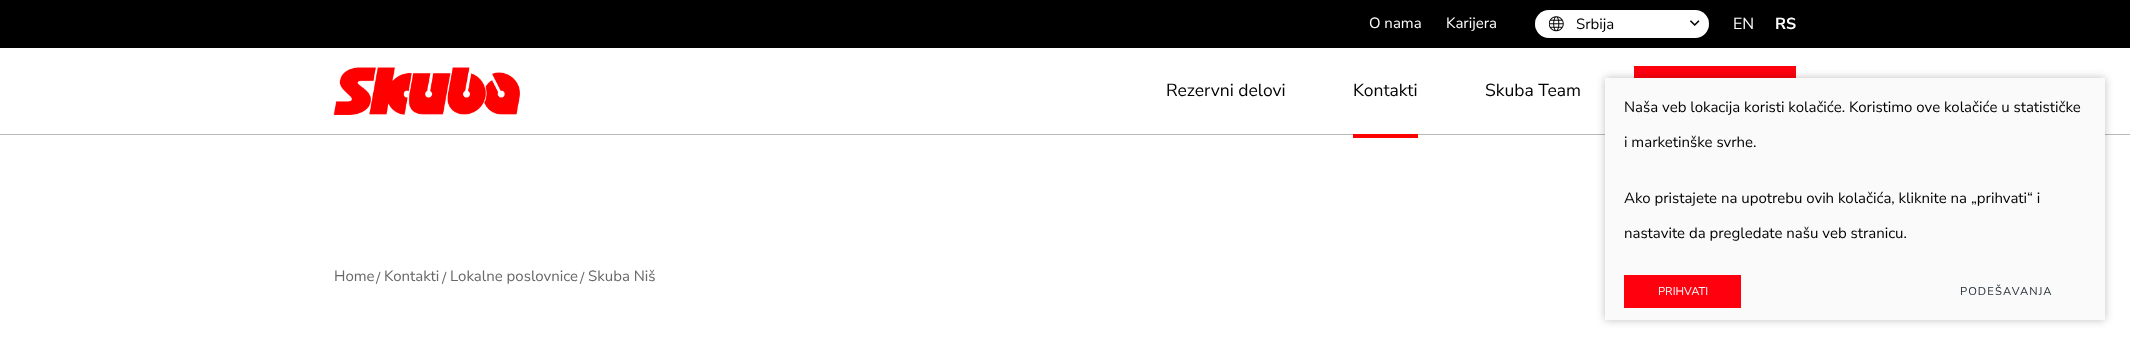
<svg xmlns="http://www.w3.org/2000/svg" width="2130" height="345">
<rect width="100%" height="100%" fill="#fff"/>
<image x="333" y="67" width="187" height="48" href="media/1.png"/>
<rect width="2130" height="48" fill="#000"/>
<text x="1369" y="28" style="font-family:Nunito Sans;font-size:15px;fill:#fff">O nama</text>
<text x="1446" y="28" style="font-family:Nunito Sans;font-size:15px;fill:#fff">Karijera</text>
<rect x="1535" y="10" width="174" height="28" rx="14" fill="#fff"/>
<rect x="1535.5" y="10.5" width="173" height="27" rx="13.5" fill="none" stroke="#ffffff4d"/>
<image x="1549" y="16" width="15" height="16" href="media/2.png"/>
<text x="1576" y="29" style="font-family:Nunito Sans;font-size:15px;fill:#000">Srbija</text>
<image x="1690" y="20" width="10" height="6" href="media/3.png"/>
<text x="1733" y="29" style="font-family:Nunito Sans;font-size:16px;fill:#fff">EN</text>
<text x="1775" y="29" style="font-family:Nunito Sans;font-size:16px;font-weight:bold;fill:#fff">RS</text>
<rect x="1634" y="66" width="162" height="12" fill="#ff000f"/>
<text x="1166" y="96" style="font-family:Nunito Sans;font-size:17.5px;fill:#000">Rezervni delovi</text>
<text x="1353" y="96" style="font-family:Nunito Sans;font-size:17.5px;fill:#000">Kontakti</text>
<rect y="134" width="2130" height="1" fill="#b9b9bb"/>
<rect x="1353" y="134" width="65" height="4" fill="#f00"/>
<text x="1485" y="96" style="font-family:Nunito Sans;font-size:17.5px;fill:#000">Skuba Team</text>
<text x="334" y="281" style="font-family:Nunito Sans;font-size:15px;fill:#666766">Home</text>
<text x="376" y="283" style="font-family:Nunito Sans;font-size:15px;fill:#666766">/</text>
<text x="384" y="281" style="font-family:Nunito Sans;font-size:15px;fill:#666766">Kontakti</text>
<text x="442" y="283" style="font-family:Nunito Sans;font-size:15px;fill:#666766">/</text>
<text x="450" y="281" style="font-family:Nunito Sans;font-size:15px;fill:#666766">Lokalne poslovnice</text>
<text x="580" y="283" style="font-family:Nunito Sans;font-size:15px;fill:#666766">/</text>
<text x="588" y="281" style="font-family:Nunito Sans;font-size:15px;fill:#666766">Skuba Niš</text>
<rect x="1605" y="78" width="500" height="242" fill="#00000040" filter="blur(4.5px)"/>
<rect x="1605" y="78" width="500" height="242" fill="#fafafa"/>
<text x="1624" y="112" style="font-family:Nunito Sans;font-size:15px;fill:#000">Naša veb lokacija koristi kolačiće. Koristimo ove kolačiće u statističke</text>
<text x="1624" y="147" style="font-family:Nunito Sans;font-size:15px;fill:#000">i marketinške svrhe.</text>
<text x="1624" y="203" style="font-family:Nunito Sans;font-size:15px;fill:#000">Ako pristajete na upotrebu ovih kolačića, kliknite na „prihvati“ i</text>
<text x="1624" y="238" style="font-family:Nunito Sans;font-size:15px;fill:#000">nastavite da pregledate našu veb stranicu.</text>
<rect x="1624" y="275" width="117" height="33" fill="#ff000f"/>
<text x="1658" y="295" style="font-family:Nunito Sans;font-size:11.25px;fill:#fff">PRIHVATI</text>
<text x="1960" y="295" style="font-family:Nunito Sans;font-size:11.25px;letter-spacing:1.1px;fill:#263238">PODEŠAVANJA</text>
</svg>
